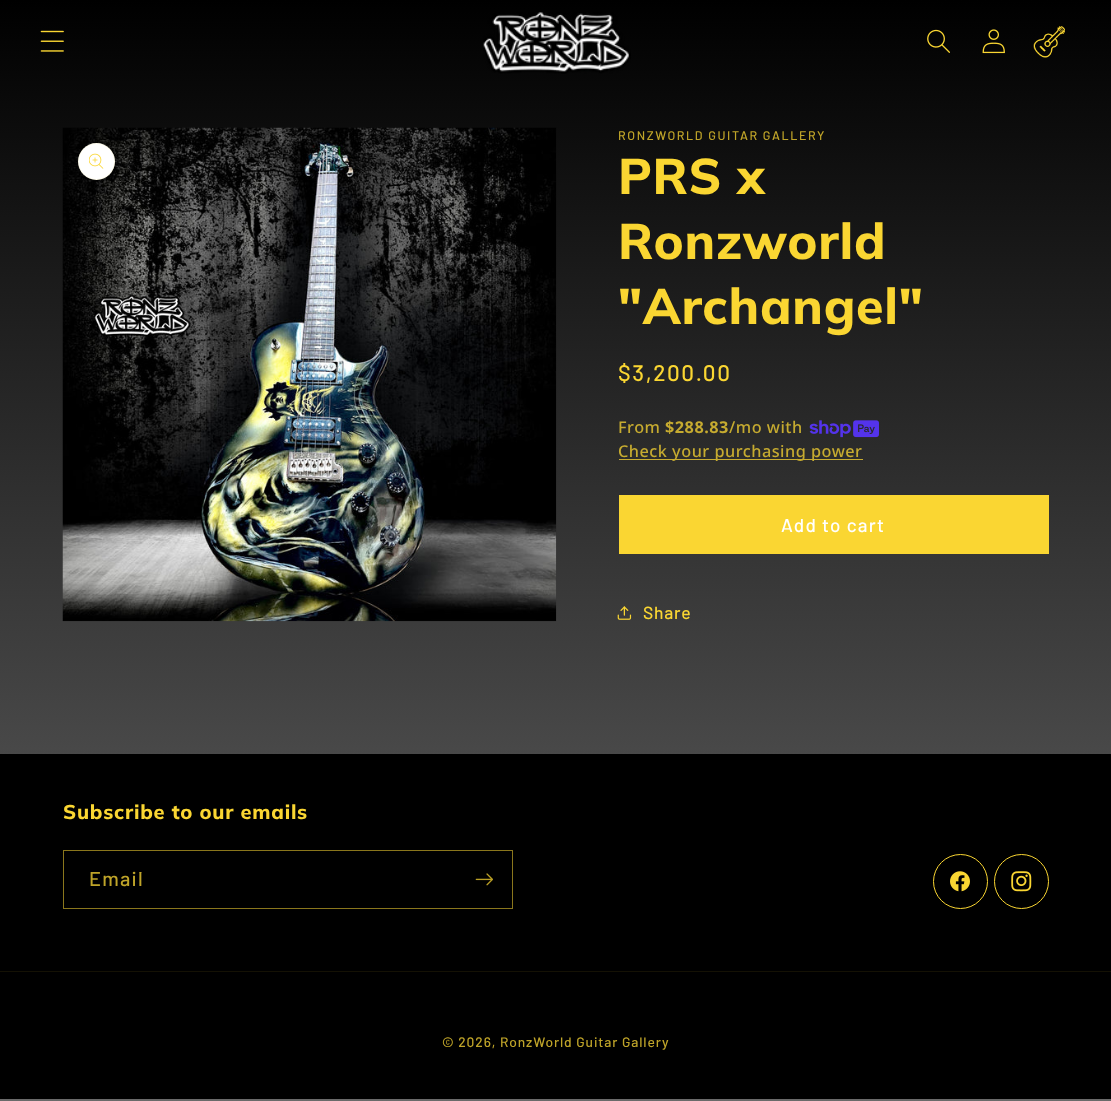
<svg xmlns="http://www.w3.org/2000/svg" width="1111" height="1101">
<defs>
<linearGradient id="g1" gradientUnits="userSpaceOnUse" x1="556" y1="0" x2="556" y2="1101"><stop offset="0" stop-color="#000"/><stop offset="1" stop-color="#6a6a6a"/></linearGradient>
</defs>
<rect width="100%" height="100%" fill="#fff"/>
<rect width="1111" height="1101" fill="url(#g1)"/>
<image x="40" y="30" width="24" height="22" href="media/1.png"/>
<image x="483" y="12" width="148" height="62" href="media/2.png"/>
<image x="927" y="29" width="23" height="24" href="media/3.png"/>
<image x="982" y="29" width="23" height="25" href="media/4.png"/>
<image x="1033" y="26" width="32" height="32" href="media/5.png"/>
<image x="62" y="127" width="495" height="495" href="media/6.png"/>
<circle cx="96.5" cy="161.5" r="18.5" fill="#fff"/>
<circle cx="96.5" cy="161.5" r="18" fill="none" stroke="#fad6321a"/>
<image x="89" y="153" width="15" height="16" href="media/7.png"/>
<text x="618" y="140" style="font-family:Barlow;font-size:12.5px;font-weight:500;letter-spacing:1.6px;fill:#bfa429">RONZWORLD GUITAR GALLERY</text>
<text x="618" y="194" style="font-family:Muli;font-size:50px;font-weight:800;letter-spacing:0.75px;fill:#fad632">PRS x</text>
<text x="618" y="259" style="font-family:Muli;font-size:50px;font-weight:800;letter-spacing:0.75px;fill:#fad632">Ronzworld</text>
<text x="618" y="324" style="font-family:Muli;font-size:50px;font-weight:800;letter-spacing:0.75px;fill:#fad632">"Archangel"</text>
<text x="618" y="381" style="font-family:Barlow;font-size:22.5px;font-weight:500;letter-spacing:1.6px;fill:#fad632">$3,200.00</text>
<text x="618" y="433" style="font-family:Noto Sans;font-size:16.25px;font-weight:500;letter-spacing:0.5px;fill:#c6ab30">From</text>
<text x="665" y="433" style="font-family:Noto Sans;font-size:16.25px;font-weight:bold;letter-spacing:0.5px;fill:#c6ab30">$288.83</text>
<text x="729" y="433" style="font-family:Noto Sans;font-size:16.25px;font-weight:500;letter-spacing:0.5px;fill:#c6ab30">/mo with</text>
<image x="809" y="420" width="70" height="18" href="media/8.png"/>
<rect x="619" y="459" width="244" height="1" fill="#c7ac31"/>
<text x="618" y="457" style="font-family:Noto Sans;font-size:16.25px;font-weight:500;letter-spacing:0.5px;fill:#c6ab30">Check your purchasing power</text>
<rect x="619" y="495" width="430" height="59" fill="#fad632"/>
<text x="781" y="532" style="font-family:Barlow;font-size:18.75px;font-weight:500;letter-spacing:1.25px;fill:#fff">Add to cart</text>
<image x="617" y="606" width="15" height="14" href="media/9.png"/>
<text x="643" y="619" style="font-family:Barlow;font-size:17.5px;font-weight:500;letter-spacing:0.75px;fill:#fad632">Share</text>
<rect y="754" width="1111" height="345" fill="#000"/>
<text x="63" y="819" style="font-family:Muli;font-size:20px;font-weight:800;letter-spacing:0.75px;fill:#fad632">Subscribe to our emails</text>
<rect x="63.5" y="850.5" width="449" height="58" fill="none" stroke="#8a761c"/>
<text x="89" y="886" style="font-family:Barlow;font-size:20px;font-weight:500;letter-spacing:1.25px;fill:#bfa429">Email</text>
<image x="475" y="873" width="18" height="13" href="media/10.png"/>
<circle cx="960.5" cy="881.5" r="27" fill="none" stroke="#fad632"/>
<image x="950" y="871" width="20" height="21" href="media/11.png"/>
<circle cx="1021.5" cy="881.5" r="27" fill="none" stroke="#fad632"/>
<image x="1011" y="871" width="21" height="21" href="media/12.png"/>
<rect y="971" width="1111" height="1" fill="#141104"/>
<text x="442" y="1047" style="font-family:Barlow;font-size:13.75px;font-weight:500;letter-spacing:0.9px;fill:#bfa429">© 2026, RonzWorld Guitar Gallery</text>
</svg>
